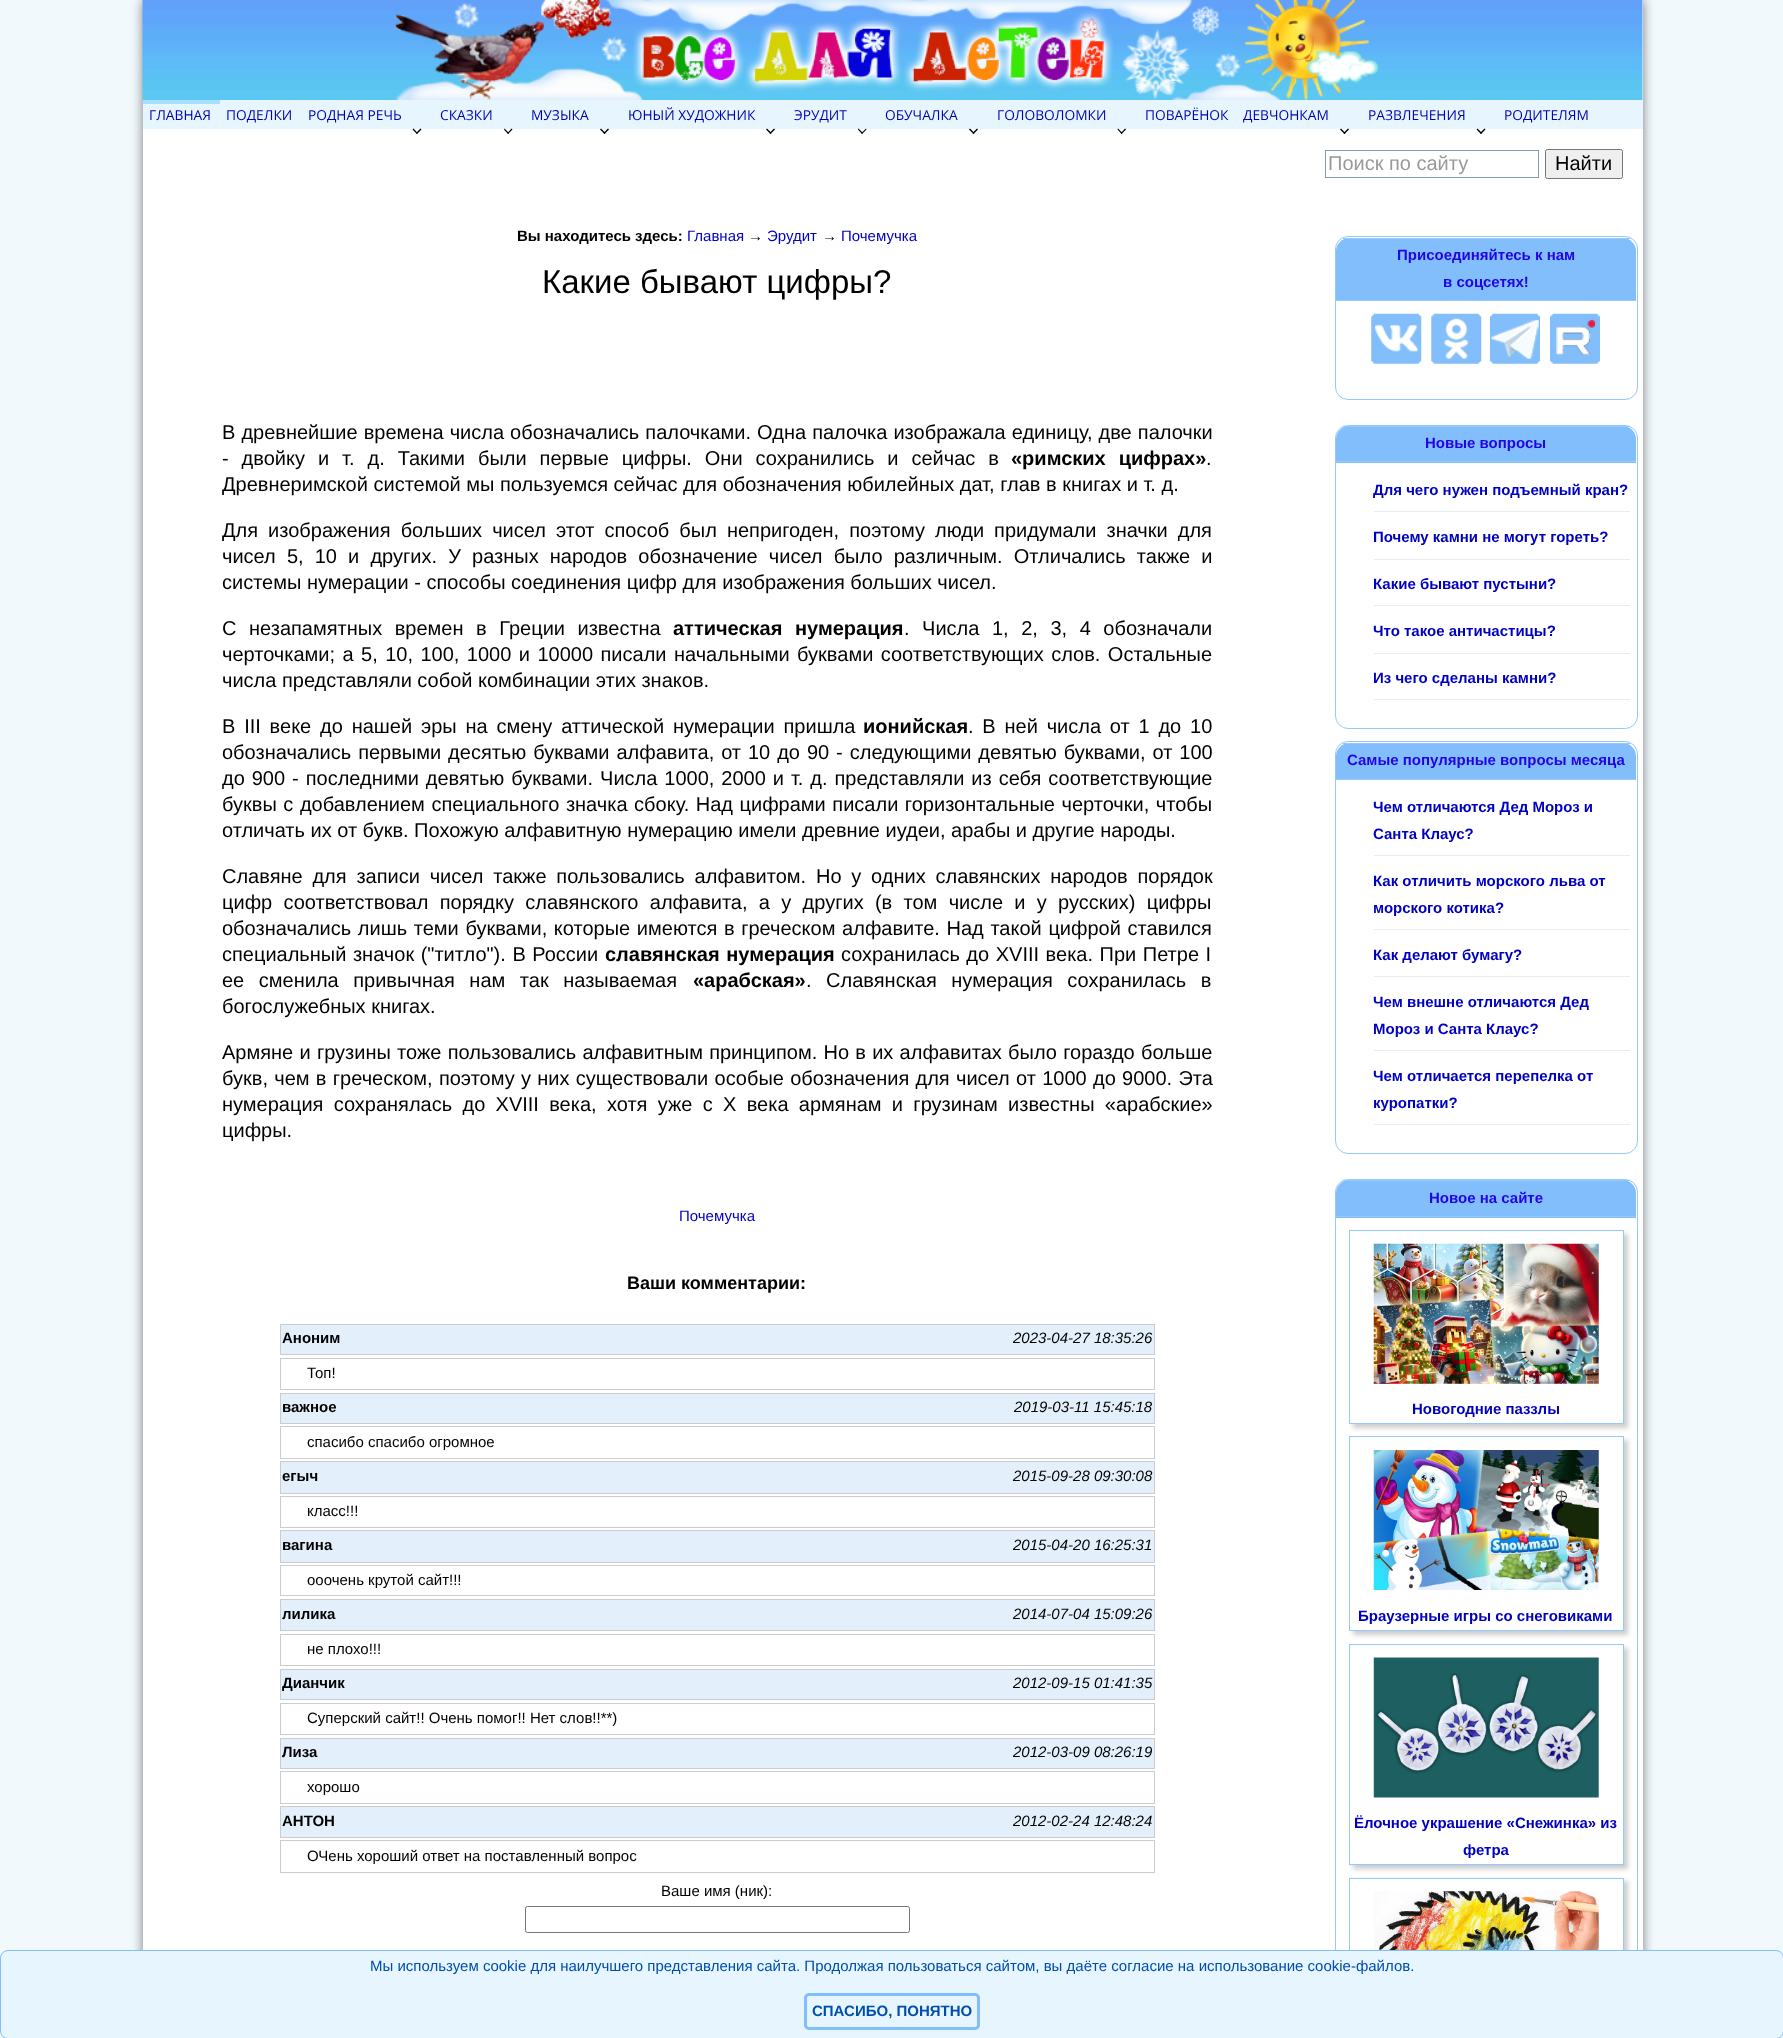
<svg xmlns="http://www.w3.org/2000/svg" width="1783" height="2038">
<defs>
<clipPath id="clip1"><path d="M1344 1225h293v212h-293zm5 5h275v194h-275z" clip-rule="evenodd"/></clipPath>
<clipPath id="clip2"><path d="M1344 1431h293v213h-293zm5 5h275v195h-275z" clip-rule="evenodd"/></clipPath>
<clipPath id="clip3"><path d="M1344 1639h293v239h-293zm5 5h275v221h-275z" clip-rule="evenodd"/></clipPath>
<clipPath id="clip4"><path d="M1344 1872h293v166h-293zm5 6h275v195h-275z" clip-rule="evenodd"/></clipPath>
</defs>
<rect width="100%" height="100%" fill="#f2f9fc"/>
<rect x="143" width="1500" height="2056" fill="#00000080" filter="blur(6px)"/>
<rect x="143" width="1500" height="1950" fill="#fff"/>
<image x="142" y="0" width="1501" height="100" href="media/1.png"/>
<image x="394" y="0" width="985" height="100" href="media/2.png"/>
<rect x="143" y="100" width="1500" height="29" fill="#e7f6fe"/>
<rect x="143" y="100" width="77" height="4" fill="#a5e0fe"/>
<text x="149" y="120" style="font-family:Open Sans;font-size:13.75px;fill:#0000b3">ГЛАВНАЯ</text>
<text x="226" y="120" style="font-family:Open Sans;font-size:13.75px;fill:#0000b3">ПОДЕЛКИ</text>
<text x="308" y="120" style="font-family:Open Sans;font-size:13.75px;fill:#0000b3">РОДНАЯ РЕЧЬ</text>
<path d="M420.5 128.5l1 1l-4.5 4.5l-1-1z" fill="#000"/>
<path d="M413.5 128.5l4 4.5l-.5 1l-4.5-4.5z" fill="#000"/>
<text x="440" y="120" style="font-family:Open Sans;font-size:13.75px;fill:#0000b3">СКАЗКИ</text>
<path d="M511.5 128.5l1 1l-4.5 4.5l-.5-1z" fill="#000"/>
<path d="M504.5 128.5l4.5 4.5l-1 1l-4-4.5z" fill="#000"/>
<text x="531" y="120" style="font-family:Open Sans;font-size:13.75px;fill:#0000b3">МУЗЫКА</text>
<path d="M608 128.5l1 1l-4.5 4.5l-1-1z" fill="#000"/>
<path d="M601 128.5l4.5 4.5l-1 1l-4.5-4.5z" fill="#000"/>
<text x="628" y="120" style="font-family:Open Sans;font-size:13.75px;fill:#0000b3">ЮНЫЙ ХУДОЖНИК</text>
<path d="M774 128.5l1 1l-4.5 4.5l-1-1z" fill="#000"/>
<path d="M767 128.5l4.5 4.5l-1 1l-4.5-4.5z" fill="#000"/>
<text x="794" y="120" style="font-family:Open Sans;font-size:13.75px;fill:#0000b3">ЭРУДИТ</text>
<path d="M866 128.5l.5 1l-4.5 4.5l-.5-1z" fill="#000"/>
<path d="M858.5 128.5l4.5 4.5l-1 1l-4-4.5z" fill="#000"/>
<text x="885" y="120" style="font-family:Open Sans;font-size:13.75px;fill:#0000b3">ОБУЧАЛКА</text>
<path d="M977 128.5l1 1l-4.5 4.5l-1-1z" fill="#000"/>
<path d="M970 128.5l4.5 4.5l-1 1l-4.5-4.5z" fill="#000"/>
<text x="997" y="120" style="font-family:Open Sans;font-size:13.75px;fill:#0000b3">ГОЛОВОЛОМКИ</text>
<path d="M1125 128.5l1 1l-4.5 4.5l-.5-1z" fill="#000"/>
<path d="M1118 128.5l4.5 4.5l-1 1l-4-4.5z" fill="#000"/>
<text x="1145" y="120" style="font-family:Open Sans;font-size:13.75px;fill:#0000b3">ПОВАРЁНОК</text>
<text x="1243" y="120" style="font-family:Open Sans;font-size:13.75px;fill:#0000b3">ДЕВЧОНКАМ</text>
<path d="M1348 128.5l1 1l-4.5 4.5l-1-1z" fill="#000"/>
<path d="M1341 128.5l4.5 4.5l-1 1l-4.5-4.5z" fill="#000"/>
<text x="1368" y="120" style="font-family:Open Sans;font-size:13.75px;fill:#0000b3">РАЗВЛЕЧЕНИЯ</text>
<path d="M1484.5 128.5l1 1l-4.5 4.5l-1-1z" fill="#000"/>
<path d="M1477.5 128.5l4.5 4.5l-1 1l-4.5-4.5z" fill="#000"/>
<text x="1504" y="120" style="font-family:Open Sans;font-size:13.75px;fill:#0000b3">РОДИТЕЛЯМ</text>
<rect x="1325.5" y="150.5" width="213" height="27" fill="none" stroke="#7f9db9"/>
<text x="1328" y="170" style="font-family:Liberation Sans;font-size:20px;fill:#999">Поиск по сайту</text>
<rect x="1545.5" y="149.5" width="77" height="29" rx="2" fill="#efefef" stroke="#767676"/>
<text x="1555" y="170" style="font-family:Liberation Sans;font-size:20px;fill:#000">Найти</text>
<text x="517" y="241" style="font-family:Liberation Sans;font-size:15px;font-weight:bold;fill:#000">Вы находитесь здесь:</text>
<text x="687" y="241" style="font-family:Liberation Sans;font-size:15px;fill:#0000c0">Главная</text>
<text x="748" y="241" style="font-family:Liberation Sans;font-size:15px;font-weight:bold;fill:#000">→</text>
<text x="767" y="241" style="font-family:Liberation Sans;font-size:15px;fill:#0000c0">Эрудит</text>
<text x="822" y="241" style="font-family:Liberation Sans;font-size:15px;font-weight:bold;fill:#000">→</text>
<text x="841" y="241" style="font-family:Liberation Sans;font-size:15px;fill:#0000c0">Почемучка</text>
<text x="542" y="293" style="font-family:Liberation Sans;font-size:33px;fill:#000">Какие бывают цифры?</text>
<text x="222" y="439" word-spacing="0.5" style="font-family:Liberation Sans;font-size:20px;fill:#000">В древнейшие времена числа обозначались палочками. Одна палочка изображала единицу, две палочки</text>
<text x="222" y="465" word-spacing="7.4" style="font-family:Liberation Sans;font-size:20px;fill:#000">- двойку и т. д. Такими были первые цифры. Они сохранились и сейчас в</text>
<text x="1011" y="465" word-spacing="7.4" style="font-family:Liberation Sans;font-size:20px;font-weight:bold;fill:#000">«римских цифрах»</text>
<text x="1206" y="465" style="font-family:Liberation Sans;font-size:20px;fill:#000">.</text>
<text x="222" y="491" style="font-family:Liberation Sans;font-size:20px;fill:#000">Древнеримской системой мы пользуемся сейчас для обозначения юбилейных дат, глав в книгах и т. д.</text>
<text x="222" y="537" word-spacing="4.5" style="font-family:Liberation Sans;font-size:20px;fill:#000">Для изображения больших чисел этот способ был непригоден, поэтому люди придумали значки для</text>
<text x="222" y="563" word-spacing="5.6" style="font-family:Liberation Sans;font-size:20px;fill:#000">чисел 5, 10 и других. У разных народов обозначение чисел было различным. Отличались также и</text>
<text x="222" y="589" style="font-family:Liberation Sans;font-size:20px;fill:#000">системы нумерации - способы соединения цифр для изображения больших чисел.</text>
<text x="222" y="635" word-spacing="7" style="font-family:Liberation Sans;font-size:20px;fill:#000">С незапамятных времен в Греции известна</text>
<text x="673" y="635" word-spacing="7" style="font-family:Liberation Sans;font-size:20px;font-weight:bold;fill:#000">аттическая нумерация</text>
<text x="904" y="635" word-spacing="7" style="font-family:Liberation Sans;font-size:20px;fill:#000">. Числа 1, 2, 3, 4 обозначали</text>
<text x="222" y="661" word-spacing="1.9" style="font-family:Liberation Sans;font-size:20px;fill:#000">черточками; а 5, 10, 100, 1000 и 10000 писали начальными буквами соответствующих слов. Остальные</text>
<text x="222" y="687" style="font-family:Liberation Sans;font-size:20px;fill:#000">числа представляли собой комбинации этих знаков.</text>
<text x="222" y="733" word-spacing="3.25" style="font-family:Liberation Sans;font-size:20px;fill:#000">В III веке до нашей эры на смену аттической нумерации пришла</text>
<text x="863" y="733" style="font-family:Liberation Sans;font-size:20px;font-weight:bold;fill:#000">ионийская</text>
<text x="968" y="733" word-spacing="3.25" style="font-family:Liberation Sans;font-size:20px;fill:#000">. В ней числа от 1 до 10</text>
<text x="222" y="759" word-spacing="1.4" style="font-family:Liberation Sans;font-size:20px;fill:#000">обозначались первыми десятью буквами алфавита, от 10 до 90 - следующими девятью буквами, от 100</text>
<text x="222" y="785" word-spacing="1.4" style="font-family:Liberation Sans;font-size:20px;fill:#000">до 900 - последними девятью буквами. Числа 1000, 2000 и т. д. представляли из себя соответствующие</text>
<text x="222" y="811" word-spacing="1" style="font-family:Liberation Sans;font-size:20px;fill:#000">буквы с добавлением специального значка сбоку. Над цифрами писали горизонтальные черточки, чтобы</text>
<text x="222" y="837" style="font-family:Liberation Sans;font-size:20px;fill:#000">отличать их от букв. Похожую алфавитную нумерацию имели древние иудеи, арабы и другие народы.</text>
<text x="222" y="883" word-spacing="4.25" style="font-family:Liberation Sans;font-size:20px;fill:#000">Славяне для записи чисел также пользовались алфавитом. Но у одних славянских народов порядок</text>
<text x="222" y="909" word-spacing="5.75" style="font-family:Liberation Sans;font-size:20px;fill:#000">цифр соответствовал порядку славянского алфавита, а у других (в том числе и у русских) цифры</text>
<text x="222" y="935" word-spacing="1.1" style="font-family:Liberation Sans;font-size:20px;fill:#000">обозначались лишь теми буквами, которые имеются в греческом алфавите. Над такой цифрой ставился</text>
<text x="222" y="961" word-spacing="1" style="font-family:Liberation Sans;font-size:20px;fill:#000">специальный значок ("титло"). В России</text>
<text x="605" y="961" word-spacing="1" style="font-family:Liberation Sans;font-size:20px;font-weight:bold;fill:#000">славянская нумерация</text>
<text x="841" y="961" word-spacing="1" style="font-family:Liberation Sans;font-size:20px;fill:#000">сохранилась до XVIII века. При Петре I</text>
<text x="222" y="987" word-spacing="9" style="font-family:Liberation Sans;font-size:20px;fill:#000">ее сменила привычная нам так называемая</text>
<text x="693" y="987" style="font-family:Liberation Sans;font-size:20px;font-weight:bold;fill:#000">«арабская»</text>
<text x="806" y="987" word-spacing="9" style="font-family:Liberation Sans;font-size:20px;fill:#000">. Славянская нумерация сохранилась в</text>
<text x="222" y="1013" style="font-family:Liberation Sans;font-size:20px;fill:#000">богослужебных книгах.</text>
<text x="222" y="1059" word-spacing="0.7" style="font-family:Liberation Sans;font-size:20px;fill:#000">Армяне и грузины тоже пользовались алфавитным принципом. Но в их алфавитах было гораздо больше</text>
<text x="222" y="1085" word-spacing="0.75" style="font-family:Liberation Sans;font-size:20px;fill:#000">букв, чем в греческом, поэтому у них существовали особые обозначения для чисел от 1000 до 9000. Эта</text>
<text x="222" y="1111" word-spacing="4.75" style="font-family:Liberation Sans;font-size:20px;fill:#000">нумерация сохранялась до XVIII века, хотя уже с X века армянам и грузинам известны «арабские»</text>
<text x="222" y="1137" style="font-family:Liberation Sans;font-size:20px;fill:#000">цифры.</text>
<text x="679" y="1221" style="font-family:Liberation Sans;font-size:15px;fill:#0000c0">Почемучка</text>
<text x="627" y="1289" style="font-family:Liberation Sans;font-size:18px;font-weight:bold;fill:#000">Ваши комментарии:</text>
<rect x="280.5" y="1324.5" width="874" height="30" fill="#e3f0fb" stroke="#ccc"/>
<text x="282" y="1343" style="font-family:Liberation Sans;font-size:15px;font-weight:bold;fill:#000">Аноним</text>
<text x="1013" y="1343" style="font-family:Liberation Sans;font-size:15px;font-style:italic;fill:#000">2023-04-27 18:35:26</text>
<rect x="280.5" y="1358.5" width="874" height="31" fill="none" stroke="#ccc"/>
<text x="307" y="1378" style="font-family:Liberation Sans;font-size:15px;fill:#000">Топ!</text>
<rect x="280.5" y="1393.5" width="874" height="30" fill="#e3f0fb" stroke="#ccc"/>
<text x="282" y="1412" style="font-family:Liberation Sans;font-size:15px;font-weight:bold;fill:#000">важное</text>
<text x="1014" y="1412" style="font-family:Liberation Sans;font-size:15px;font-style:italic;fill:#000">2019-03-11 15:45:18</text>
<rect x="280.5" y="1426.5" width="874" height="32" fill="none" stroke="#ccc"/>
<text x="307" y="1447" style="font-family:Liberation Sans;font-size:15px;fill:#000">спасибо спасибо огромное</text>
<rect x="280.5" y="1461.5" width="874" height="32" fill="#e3f0fb" stroke="#ccc"/>
<text x="282" y="1481" style="font-family:Liberation Sans;font-size:15px;font-weight:bold;fill:#000">егыч</text>
<text x="1013" y="1481" style="font-family:Liberation Sans;font-size:15px;font-style:italic;fill:#000">2015-09-28 09:30:08</text>
<rect x="280.5" y="1496.5" width="874" height="31" fill="none" stroke="#ccc"/>
<text x="307" y="1516" style="font-family:Liberation Sans;font-size:15px;fill:#000">класс!!!</text>
<rect x="280.5" y="1530.5" width="874" height="32" fill="#e3f0fb" stroke="#ccc"/>
<text x="282" y="1550" style="font-family:Liberation Sans;font-size:15px;font-weight:bold;fill:#000">вагина</text>
<text x="1013" y="1550" style="font-family:Liberation Sans;font-size:15px;font-style:italic;fill:#000">2015-04-20 16:25:31</text>
<rect x="280.5" y="1565.5" width="874" height="30" fill="none" stroke="#ccc"/>
<text x="307" y="1585" style="font-family:Liberation Sans;font-size:15px;fill:#000">ооочень крутой сайт!!!</text>
<rect x="280.5" y="1599.5" width="874" height="31" fill="#e3f0fb" stroke="#ccc"/>
<text x="282" y="1619" style="font-family:Liberation Sans;font-size:15px;font-weight:bold;fill:#000">лилика</text>
<text x="1013" y="1619" style="font-family:Liberation Sans;font-size:15px;font-style:italic;fill:#000">2014-07-04 15:09:26</text>
<rect x="280.5" y="1634.5" width="874" height="31" fill="none" stroke="#ccc"/>
<text x="307" y="1654" style="font-family:Liberation Sans;font-size:15px;fill:#000">не плохо!!!</text>
<rect x="280.5" y="1669.5" width="874" height="30" fill="#e3f0fb" stroke="#ccc"/>
<text x="282" y="1688" style="font-family:Liberation Sans;font-size:15px;font-weight:bold;fill:#000">Дианчик</text>
<text x="1013" y="1688" style="font-family:Liberation Sans;font-size:15px;font-style:italic;fill:#000">2012-09-15 01:41:35</text>
<rect x="280.5" y="1703.5" width="874" height="31" fill="none" stroke="#ccc"/>
<text x="307" y="1723" style="font-family:Liberation Sans;font-size:15px;fill:#000">Суперский сайт!! Очень помог!! Нет слов!!**)</text>
<rect x="280.5" y="1738.5" width="874" height="30" fill="#e3f0fb" stroke="#ccc"/>
<text x="282" y="1757" style="font-family:Liberation Sans;font-size:15px;font-weight:bold;fill:#000">Лиза</text>
<text x="1013" y="1757" style="font-family:Liberation Sans;font-size:15px;font-style:italic;fill:#000">2012-03-09 08:26:19</text>
<rect x="280.5" y="1771.5" width="874" height="32" fill="none" stroke="#ccc"/>
<text x="307" y="1792" style="font-family:Liberation Sans;font-size:15px;fill:#000">хорошо</text>
<rect x="280.5" y="1806.5" width="874" height="31" fill="#e3f0fb" stroke="#ccc"/>
<text x="282" y="1826" style="font-family:Liberation Sans;font-size:15px;font-weight:bold;fill:#000">АНТОН</text>
<text x="1013" y="1826" style="font-family:Liberation Sans;font-size:15px;font-style:italic;fill:#000">2012-02-24 12:48:24</text>
<rect x="280.5" y="1840.5" width="874" height="32" fill="none" stroke="#ccc"/>
<text x="307" y="1861" style="font-family:Liberation Sans;font-size:15px;fill:#000">ОЧень хороший ответ на поставленный вопрос</text>
<text x="661" y="1896" style="font-family:Liberation Sans;font-size:15px;fill:#000">Ваше имя (ник):</text>
<rect x="525.5" y="1906.5" width="384" height="26" rx="2" fill="none" stroke="#767676"/>
<rect x="1335.5" y="236.5" width="302" height="163" rx="12.5" fill="none" stroke="#95c9fc"/>
<path d="M1349 238h274c7 0 13 6 13 13v50h-300v-50c0-7 6-13 13-13z" fill="#82befb"/>
<rect x="1343" y="238" width="287" height="1" fill="#95c9fc"/>
<rect x="1336" y="300" width="300" height="1" fill="#95c9fc"/>
<text x="1397" y="260" style="font-family:Liberation Sans;font-size:15px;font-weight:bold;fill:#2304e4">Присоединяйтесь к нам</text>
<text x="1443" y="287" style="font-family:Liberation Sans;font-size:15px;font-weight:bold;fill:#2304e4">в соцсетях!</text>
<image x="1371" y="313" width="51" height="51" href="media/3.png"/>
<image x="1431" y="313" width="51" height="51" href="media/4.png"/>
<image x="1490" y="313" width="50" height="51" href="media/5.png"/>
<image x="1550" y="313" width="50" height="51" href="media/6.png"/>
<rect x="1335.5" y="425.5" width="302" height="303" rx="12.5" fill="none" stroke="#95c9fc"/>
<path d="M1349 426h274c7 0 13 6 13 13v24h-300v-24c0-7 6-13 13-13z" fill="#82befb"/>
<rect x="1343" y="426" width="287" height="1" fill="#95c9fc"/>
<rect x="1336" y="461" width="300" height="1" fill="#95c9fc"/>
<text x="1425" y="448" style="font-family:Liberation Sans;font-size:15px;font-weight:bold;fill:#2304e4">Новые вопросы</text>
<rect x="1374" y="511" width="256" height="1" fill="#e4ecf4"/>
<text x="1373" y="495" style="font-family:Liberation Sans;font-size:15px;font-weight:bold;fill:#0000c0">Для чего нужен подъемный кран?</text>
<rect x="1374" y="559" width="256" height="1" fill="#e4ecf4"/>
<text x="1373" y="542" style="font-family:Liberation Sans;font-size:15px;font-weight:bold;fill:#0000c0">Почему камни не могут гореть?</text>
<rect x="1374" y="605" width="256" height="1" fill="#e4ecf4"/>
<text x="1373" y="589" style="font-family:Liberation Sans;font-size:15px;font-weight:bold;fill:#0000c0">Какие бывают пустыни?</text>
<rect x="1374" y="653" width="256" height="1" fill="#e4ecf4"/>
<text x="1373" y="636" style="font-family:Liberation Sans;font-size:15px;font-weight:bold;fill:#0000c0">Что такое античастицы?</text>
<rect x="1374" y="699" width="256" height="1" fill="#e4ecf4"/>
<text x="1373" y="683" style="font-family:Liberation Sans;font-size:15px;font-weight:bold;fill:#0000c0">Из чего сделаны камни?</text>
<rect x="1335.5" y="741.5" width="302" height="412" rx="12.5" fill="none" stroke="#95c9fc"/>
<path d="M1349 743h274c7 0 13 6 13 13v24h-300v-24c0-7 6-13 13-13z" fill="#82befb"/>
<rect x="1343" y="743" width="287" height="1" fill="#95c9fc"/>
<rect x="1336" y="779" width="300" height="1" fill="#95c9fc"/>
<text x="1347" y="765" style="font-family:Liberation Sans;font-size:15px;font-weight:bold;fill:#2304e4">Самые популярные вопросы месяца</text>
<rect x="1374" y="855" width="256" height="1" fill="#e4ecf4"/>
<text x="1373" y="812" style="font-family:Liberation Sans;font-size:15px;font-weight:bold;fill:#0000c0">Чем отличаются Дед Мороз и</text>
<text x="1373" y="839" style="font-family:Liberation Sans;font-size:15px;font-weight:bold;fill:#0000c0">Санта Клаус?</text>
<rect x="1374" y="929" width="256" height="1" fill="#e4ecf4"/>
<text x="1373" y="886" style="font-family:Liberation Sans;font-size:15px;font-weight:bold;fill:#0000c0">Как отличить морского льва от</text>
<text x="1373" y="913" style="font-family:Liberation Sans;font-size:15px;font-weight:bold;fill:#0000c0">морского котика?</text>
<rect x="1374" y="976" width="256" height="1" fill="#e4ecf4"/>
<text x="1373" y="960" style="font-family:Liberation Sans;font-size:15px;font-weight:bold;fill:#0000c0">Как делают бумагу?</text>
<rect x="1374" y="1050" width="256" height="1" fill="#e4ecf4"/>
<text x="1373" y="1007" style="font-family:Liberation Sans;font-size:15px;font-weight:bold;fill:#0000c0">Чем внешне отличаются Дед</text>
<text x="1373" y="1034" style="font-family:Liberation Sans;font-size:15px;font-weight:bold;fill:#0000c0">Мороз и Санта Клаус?</text>
<rect x="1374" y="1124" width="256" height="1" fill="#e4ecf4"/>
<text x="1373" y="1081" style="font-family:Liberation Sans;font-size:15px;font-weight:bold;fill:#0000c0">Чем отличается перепелка от</text>
<text x="1373" y="1108" style="font-family:Liberation Sans;font-size:15px;font-weight:bold;fill:#0000c0">куропатки?</text>
<rect x="1335.5" y="1179.5" width="302" height="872" rx="12.5" fill="none" stroke="#95c9fc"/>
<path d="M1349 1180h274c7 0 13 6 13 13v25h-300v-25c0-7 6-13 13-13z" fill="#82befb"/>
<rect x="1343" y="1180" width="287" height="1" fill="#95c9fc"/>
<rect x="1336" y="1216" width="300" height="1" fill="#95c9fc"/>
<text x="1429" y="1203" style="font-family:Liberation Sans;font-size:15px;font-weight:bold;fill:#2304e4">Новое на сайте</text>
<g clip-path="url(#clip1)">
<rect x="1353" y="1234" width="275" height="194" fill="#ccc" filter="blur(2.5px)"/>
</g>
<rect x="1349.5" y="1230.5" width="274" height="193" fill="none" stroke="#95c9fc"/>
<image x="1373" y="1243" width="226" height="141" href="media/7.png"/>
<text x="1412" y="1414" style="font-family:Liberation Sans;font-size:15px;font-weight:bold;fill:#0000c0">Новогодние паззлы</text>
<g clip-path="url(#clip2)">
<rect x="1353" y="1440" width="275" height="195" fill="#ccc" filter="blur(2.5px)"/>
</g>
<rect x="1349.5" y="1436.5" width="274" height="194" fill="none" stroke="#95c9fc"/>
<image x="1373" y="1450" width="226" height="140" href="media/8.png"/>
<text x="1358" y="1621" style="font-family:Liberation Sans;font-size:15px;font-weight:bold;fill:#0000c0">Браузерные игры со снеговиками</text>
<g clip-path="url(#clip3)">
<rect x="1353" y="1648" width="275" height="221" fill="#ccc" filter="blur(2.5px)"/>
</g>
<rect x="1349.5" y="1644.5" width="274" height="220" fill="none" stroke="#95c9fc"/>
<image x="1373" y="1657" width="226" height="141" href="media/9.png"/>
<text x="1354" y="1828" style="font-family:Liberation Sans;font-size:15px;font-weight:bold;fill:#0000c0">Ёлочное украшение «Снежинка» из</text>
<text x="1463" y="1855" style="font-family:Liberation Sans;font-size:15px;font-weight:bold;fill:#0000c0">фетра</text>
<g clip-path="url(#clip4)">
<rect x="1353" y="1881" width="275" height="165" fill="#ccc" filter="blur(2.5px)"/>
</g>
<rect x="1349.5" y="1878.5" width="274" height="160" fill="none" stroke="#95c9fc"/>
<image x="1374" y="1891" width="225" height="59" href="media/10.png"/>
<rect x="0.5" y="1950.5" width="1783" height="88" rx="7.5" fill="#e7f6fe" stroke="#82befb"/>
<text x="370" y="1971" style="font-family:Liberation Sans;font-size:15px;fill:#004dad">Мы используем cookie для наилучшего представления сайта. Продолжая пользоваться сайтом, вы даёте согласие на использование cookie-файлов.</text>
<rect x="805.5" y="1994.5" width="173" height="34" rx="3.5" fill="none" stroke="#82befb" stroke-width="3"/>
<text x="812" y="2016" style="font-family:Liberation Sans;font-size:15px;font-weight:bold;fill:#004dad">СПАСИБО, ПОНЯТНО</text>
</svg>
